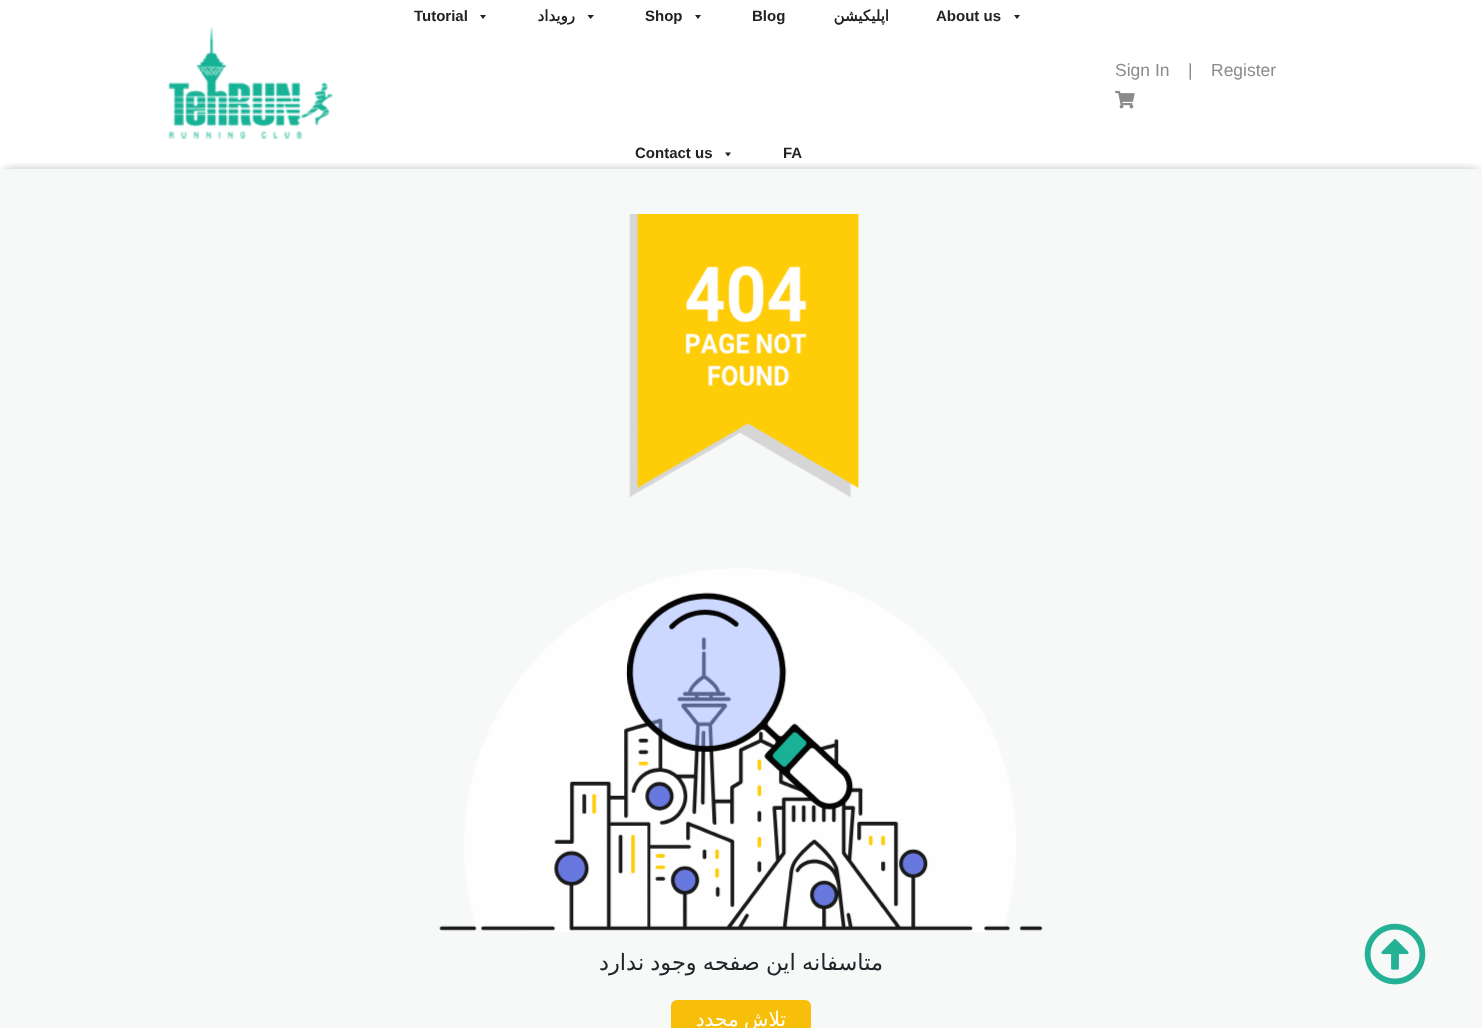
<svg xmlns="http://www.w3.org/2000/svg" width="1482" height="1028">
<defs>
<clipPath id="clip1"><rect x="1" y="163" width="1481" height="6"/></clipPath>
</defs>
<rect width="100%" height="100%" fill="#fff"/>
<image x="168" y="26" width="165" height="113" href="media/1.png"/>
<text x="414" y="21" style="font-family:Liberation Sans;font-size:15px;font-weight:bold;fill:#222">Tutorial</text>
<path d="M486 15l-3 4l-3-4z" fill="#222"/>
<text x="575" y="21" style="font-family:DejaVu Sans;font-size:15px;font-weight:bold;direction:rtl;fill:#222">رویداد</text>
<path d="M594 15l-3.5 4l-3-4z" fill="#222"/>
<text x="645" y="21" style="font-family:Liberation Sans;font-size:15px;font-weight:bold;fill:#222">Shop</text>
<path d="M701 15l-3 4l-3-4z" fill="#222"/>
<text x="752" y="21" style="font-family:Liberation Sans;font-size:15px;font-weight:bold;fill:#222">Blog</text>
<text x="889" y="21" style="font-family:DejaVu Sans;font-size:15px;font-weight:bold;direction:rtl;fill:#222">اپلیکیشن</text>
<text x="936" y="21" style="font-family:Liberation Sans;font-size:15px;font-weight:bold;fill:#222">About us</text>
<path d="M1020 15l-3 4l-3-4z" fill="#222"/>
<rect y="169" width="1482" height="859" fill="#f7f9f9"/>
<g clip-path="url(#clip1)">
<rect x="-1" y="168" width="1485" height="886" rx="14" fill="#00000033" filter="blur(4px)"/>
</g>
<text x="635" y="158" style="font-family:Liberation Sans;font-size:15px;font-weight:bold;fill:#222">Contact us</text>
<path d="M731 152.5l-3 4l-3-4z" fill="#222"/>
<text x="783" y="158" style="font-family:Liberation Sans;font-size:15px;font-weight:bold;fill:#222">FA</text>
<text x="1115" y="76" style="font-family:Liberation Sans;font-size:17.5px;fill:#8b8b8b">Sign In</text>
<text x="1188" y="76" style="font-family:Liberation Sans;font-size:17.5px;fill:#8b8b8b">|</text>
<text x="1211" y="76" style="font-family:Liberation Sans;font-size:17.5px;fill:#8b8b8b">Register</text>
<image x="1115" y="90" width="20" height="19" href="media/2.png"/>
<image x="439" y="214" width="604" height="718" href="media/3.png"/>
<text x="883" y="970" word-spacing="-1" style="font-family:DejaVu Sans;font-size:22.5px;direction:rtl;fill:#212529">متاسفانه این صفحه وجود ندارد</text>
<rect x="671" y="1000" width="140" height="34" rx="6" fill="#f7bf09"/>
<text x="786" y="1026" word-spacing="-1" style="font-family:DejaVu Sans;font-size:20px;direction:rtl;fill:#fff">تلاش مجدد</text>
<image x="1364" y="923" width="62" height="62" href="media/4.png"/>
</svg>
